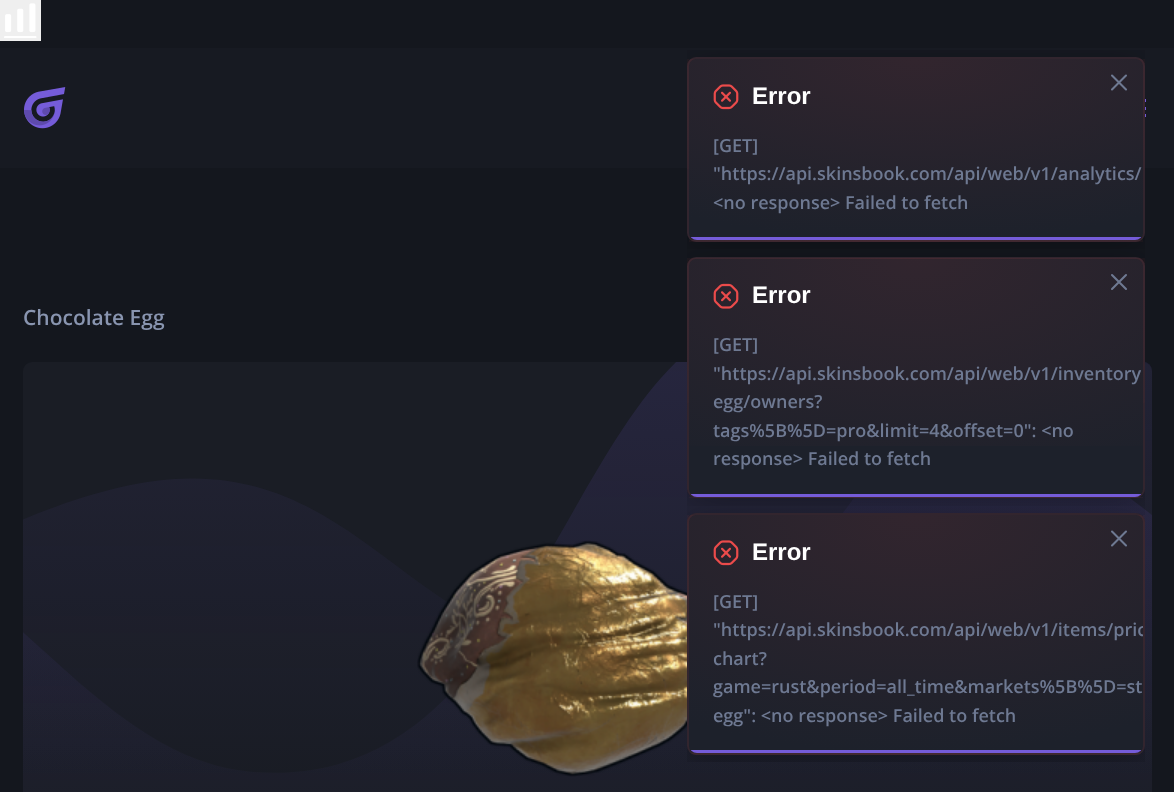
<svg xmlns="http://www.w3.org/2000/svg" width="1174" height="792">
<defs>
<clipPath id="clip1"><rect x="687" y="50" width="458" height="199"/></clipPath>
<radialGradient id="g1" gradientUnits="userSpaceOnUse" cx="0" cy="0" r="1" gradientTransform="matrix(455 0 0 182 461 59)"><stop offset="0" stop-color="#eb4b4b" stop-opacity="0.1"/><stop offset="1" stop-color="#eb4b4b" stop-opacity="0"/></radialGradient>
<clipPath id="clip2"><rect x="687" y="57" width="458" height="185" rx="9"/></clipPath>
<radialGradient id="g2" gradientUnits="userSpaceOnUse" cx="0" cy="0" r="1" gradientTransform="matrix(455 0 0 182 916 59)"><stop offset="0" stop-color="#32252e"/><stop offset="1" stop-color="#1d212b"/></radialGradient>
<radialGradient id="g3" gradientUnits="userSpaceOnUse" cx="0" cy="0" r="1" gradientTransform="matrix(455 0 0 182 1370 59)"><stop offset="0" stop-color="#eb4b4b" stop-opacity="0.1"/><stop offset="1" stop-color="#eb4b4b" stop-opacity="0"/></radialGradient>
<radialGradient id="g4" gradientUnits="userSpaceOnUse" cx="0" cy="0" r="1" gradientTransform="matrix(455 0 0 182 916 240)"><stop offset="0" stop-color="#eb4b4b" stop-opacity="0.1"/><stop offset="1" stop-color="#eb4b4b" stop-opacity="0"/></radialGradient>
<clipPath id="clip3"><rect x="689" y="59" width="454" height="181" rx="8"/></clipPath>
<clipPath id="clip4"><rect x="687" y="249" width="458" height="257"/></clipPath>
<radialGradient id="g5" gradientUnits="userSpaceOnUse" cx="0" cy="0" r="1" gradientTransform="matrix(455 0 0 239 461 258)"><stop offset="0" stop-color="#eb4b4b" stop-opacity="0.1"/><stop offset="1" stop-color="#eb4b4b" stop-opacity="0"/></radialGradient>
<radialGradient id="g6" gradientUnits="userSpaceOnUse" cx="0" cy="0" r="1" gradientTransform="matrix(455 0 0 239 916 258)"><stop offset="0" stop-color="#eb4b4b" stop-opacity="0.1"/><stop offset="1" stop-color="#eb4b4b" stop-opacity="0"/></radialGradient>
<radialGradient id="g7" gradientUnits="userSpaceOnUse" cx="0" cy="0" r="1" gradientTransform="matrix(455 0 0 239 1370 258)"><stop offset="0" stop-color="#eb4b4b" stop-opacity="0.1"/><stop offset="1" stop-color="#eb4b4b" stop-opacity="0"/></radialGradient>
<radialGradient id="g8" gradientUnits="userSpaceOnUse" cx="0" cy="0" r="1" gradientTransform="matrix(455 0 0 239 916 497)"><stop offset="0" stop-color="#eb4b4b" stop-opacity="0.1"/><stop offset="1" stop-color="#eb4b4b" stop-opacity="0"/></radialGradient>
<clipPath id="clip5"><rect x="689" y="258" width="454" height="239" rx="8"/></clipPath>
<clipPath id="clip6"><rect x="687" y="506" width="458" height="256"/></clipPath>
<radialGradient id="g9" gradientUnits="userSpaceOnUse" cx="0" cy="0" r="1" gradientTransform="matrix(455 0 0 239 461 515)"><stop offset="0" stop-color="#eb4b4b" stop-opacity="0.1"/><stop offset="1" stop-color="#eb4b4b" stop-opacity="0"/></radialGradient>
<clipPath id="clip7"><rect x="687" y="513" width="458" height="242" rx="9"/></clipPath>
<radialGradient id="g10" gradientUnits="userSpaceOnUse" cx="0" cy="0" r="1" gradientTransform="matrix(455 0 0 239 916 515)"><stop offset="0" stop-color="#32252e"/><stop offset="1" stop-color="#1d212b"/></radialGradient>
<radialGradient id="g11" gradientUnits="userSpaceOnUse" cx="0" cy="0" r="1" gradientTransform="matrix(455 0 0 239 1370 515)"><stop offset="0" stop-color="#eb4b4b" stop-opacity="0.1"/><stop offset="1" stop-color="#eb4b4b" stop-opacity="0"/></radialGradient>
<radialGradient id="g12" gradientUnits="userSpaceOnUse" cx="0" cy="0" r="1" gradientTransform="matrix(455 0 0 239 916 753)"><stop offset="0" stop-color="#32252e"/><stop offset="1" stop-color="#1d212b"/></radialGradient>
<clipPath id="clip8"><rect x="689" y="515" width="454" height="238" rx="8"/></clipPath>
</defs>
<rect width="100%" height="100%" fill="#14171e"/>
<rect width="41" height="41" fill="#efefef"/>
<image x="4" y="3" width="33" height="35" href="media/1.png"/>
<rect y="48" width="1174" height="120" fill="#171a22"/>
<image x="24" y="87" width="42" height="42" href="media/2.png"/>
<rect x="1145" y="99" width="1" height="3" fill="#755cd9"/>
<rect x="1145" y="107" width="1" height="3" fill="#755cd9"/>
<rect x="1145" y="114" width="1" height="3" fill="#755cd9"/>
<text x="23" y="325" style="font-family:Open Sans;font-size:21px;font-weight:600;fill:#8995b0">Chocolate Egg</text>
<rect x="23" y="362" width="1129" height="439" rx="9" fill="#1a1d25"/>
<image x="23" y="362" width="1129" height="430" href="media/3.png"/>
<image x="417" y="540" width="270" height="237" href="media/4.png"/>
<g clip-path="url(#clip1)">
<rect x="687" y="63" width="458" height="185" rx="9" fill="#0000004d" filter="blur(19px)"/>
</g>
<rect x="687" y="57" width="458" height="185" rx="9" fill="#1d212b"/>
<rect x="687" y="59" width="2" height="110" fill="url(#g1)"/>
<g clip-path="url(#clip2)">
<rect x="689" y="59" width="454" height="181" fill="url(#g2)"/>
</g>
<rect x="1143" y="59" width="2" height="111" fill="url(#g3)"/>
<rect x="689" y="240" width="454" height="2" fill="url(#g4)"/>
<rect x="688" y="58" width="456" height="183" rx="8" fill="none" stroke="#eb4b4b1a" stroke-width="2"/>
<path d="M1112 75.5l14 14m-14 0l14-14" fill="none" stroke="#6e7992" stroke-width="2.1" stroke-linecap="round" stroke-linejoin="round"/>
<image x="713" y="84" width="26" height="26" href="media/5.png"/>
<text x="752" y="104" style="font-family:Liberation Sans;font-size:24px;font-weight:bold;fill:#fff">Error</text>
<text x="713" y="152" style="font-family:Open Sans;font-size:18px;font-weight:600;fill:#6e7992">[GET]</text>
<text x="713" y="180" style="font-family:Open Sans;font-size:18px;font-weight:600;fill:#6e7992">"https://api.skinsbook.com/api/web/v1/analytics/</text>
<text x="713" y="209" style="font-family:Open Sans;font-size:18px;font-weight:600;fill:#6e7992">&lt;no response&gt; Failed to fetch</text>
<g clip-path="url(#clip3)">
<rect x="689" y="237" width="454" height="3" rx="1.5" fill="#755cd9"/>
</g>
<g clip-path="url(#clip4)">
<rect x="687" y="263" width="458" height="241" rx="9" fill="#0000004d" filter="blur(19px)"/>
</g>
<rect x="687" y="257" width="458" height="241" rx="9" fill="#1d212b"/>
<rect x="687" y="258" width="2" height="145" fill="url(#g5)"/>
<rect x="689" y="258" width="454" height="188" fill="url(#g6)"/>
<rect x="1143" y="258" width="2" height="145" fill="url(#g7)"/>
<rect x="689" y="497" width="454" height="1" fill="url(#g8)"/>
<rect x="688" y="258" width="456" height="239" rx="8" fill="none" stroke="#eb4b4b1a" stroke-width="2"/>
<path d="M1112 275l14 14m-14 0l14-14" fill="none" stroke="#6e7992" stroke-width="2.1" stroke-linecap="round" stroke-linejoin="round"/>
<image x="713" y="283" width="26" height="26" href="media/6.png"/>
<text x="752" y="303" style="font-family:Liberation Sans;font-size:24px;font-weight:bold;fill:#fff">Error</text>
<text x="713" y="351" style="font-family:Open Sans;font-size:18px;font-weight:600;fill:#6e7992">[GET]</text>
<text x="713" y="380" style="font-family:Open Sans;font-size:18px;font-weight:600;fill:#6e7992">"https://api.skinsbook.com/api/web/v1/inventory</text>
<text x="713" y="408" style="font-family:Open Sans;font-size:18px;font-weight:600;fill:#6e7992">egg/owners?</text>
<text x="713" y="437" style="font-family:Open Sans;font-size:18px;font-weight:600;fill:#6e7992">tags%5B%5D=pro&amp;limit=4&amp;offset=0": &lt;no</text>
<text x="713" y="465" style="font-family:Open Sans;font-size:18px;font-weight:600;fill:#6e7992">response&gt; Failed to fetch</text>
<g clip-path="url(#clip5)">
<rect x="689" y="494" width="454" height="3" rx="1.5" fill="#755cd9"/>
</g>
<g clip-path="url(#clip6)">
<rect x="687" y="519" width="458" height="242" rx="9" fill="#0000004d" filter="blur(19px)"/>
</g>
<rect x="687" y="513" width="458" height="242" rx="9" fill="#1d212b"/>
<rect x="687" y="515" width="2" height="145" fill="url(#g9)"/>
<g clip-path="url(#clip7)">
<rect x="689" y="515" width="454" height="238" fill="url(#g10)"/>
</g>
<rect x="1143" y="515" width="2" height="145" fill="url(#g11)"/>
<g clip-path="url(#clip7)">
<rect x="689" y="753" width="454" height="2" fill="url(#g12)"/>
</g>
<rect x="688" y="514" width="456" height="240" rx="8" fill="none" stroke="#eb4b4b1a" stroke-width="2"/>
<path d="M1112 531.5l14 14m-14 0l14-14" fill="none" stroke="#6e7992" stroke-width="2.1" stroke-linecap="round" stroke-linejoin="round"/>
<image x="713" y="540" width="26" height="26" href="media/7.png"/>
<text x="752" y="560" style="font-family:Liberation Sans;font-size:24px;font-weight:bold;fill:#fff">Error</text>
<text x="713" y="608" style="font-family:Open Sans;font-size:18px;font-weight:600;fill:#6e7992">[GET]</text>
<g clip-path="url(#clip8)">
<text x="713" y="636" style="font-family:Open Sans;font-size:18px;font-weight:600;fill:#6e7992">"https://api.skinsbook.com/api/web/v1/items/pric</text>
</g>
<text x="713" y="665" style="font-family:Open Sans;font-size:18px;font-weight:600;fill:#6e7992">chart?</text>
<text x="713" y="693" style="font-family:Open Sans;font-size:18px;font-weight:600;fill:#6e7992">game=rust&amp;period=all_time&amp;markets%5B%5D=st</text>
<text x="713" y="722" style="font-family:Open Sans;font-size:18px;font-weight:600;fill:#6e7992">egg": &lt;no response&gt; Failed to fetch</text>
<g clip-path="url(#clip8)">
<rect x="689" y="750" width="454" height="3" rx="1.5" fill="#755cd9"/>
</g>
</svg>
